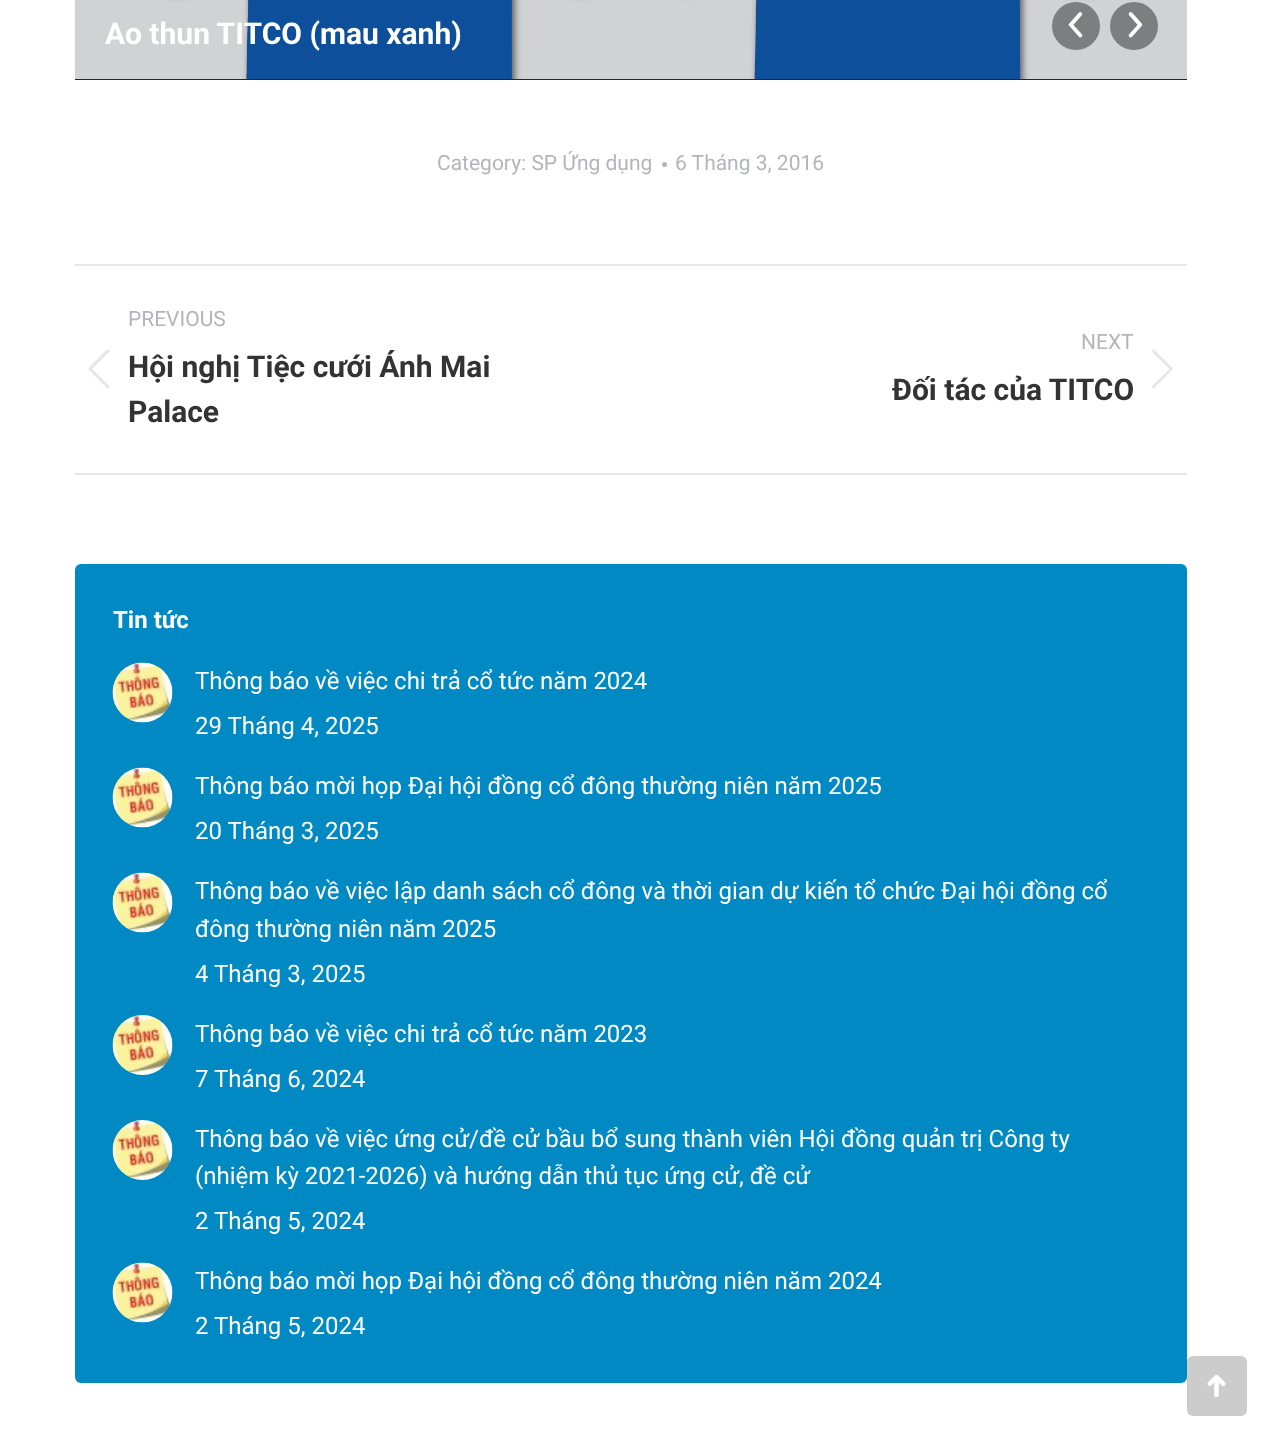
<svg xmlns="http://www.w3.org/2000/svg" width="1261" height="1430">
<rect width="100%" height="100%" fill="#fff"/>
<rect x="75" y="79" width="1112" height="1" fill="#262626"/>
<image x="75" y="0" width="1112" height="79" href="media/1.png"/>
<text x="105" y="44" style="font-family:Roboto;font-size:30px;font-weight:bold;fill:#fff">Ao thun TITCO (mau xanh)</text>
<circle cx="1076" cy="26" r="24" fill="#7d7e7f"/>
<image x="1068" y="12" width="15" height="26" href="media/2.png"/>
<circle cx="1134" cy="26" r="24" fill="#7d7e7f"/>
<image x="1128" y="12" width="15" height="26" href="media/3.png"/>
<text x="437" y="170" style="font-family:Roboto;font-size:21px;fill:#b4b5bb">Category: SP Ứng dụng</text>
<circle cx="664.5" cy="164.5" r="2.5" fill="#b4b5bb"/>
<text x="675" y="170" style="font-family:Roboto;font-size:21px;fill:#b4b5bb">6 Tháng 3, 2016</text>
<rect x="75" y="264" width="1112" height="2" fill="#e7e7e7"/>
<rect x="75" y="473" width="1112" height="2" fill="#e7e7e7"/>
<text x="128" y="326" style="font-family:Roboto;font-size:21px;fill:#b4b5bb">PREVIOUS</text>
<image x="88" y="349" width="22" height="40" href="media/4.png"/>
<text x="128" y="377" style="font-family:Roboto;font-size:30px;font-weight:bold;fill:#333">Hội nghị Tiệc cưới Ánh Mai</text>
<text x="128" y="422" style="font-family:Roboto;font-size:30px;font-weight:bold;fill:#333">Palace</text>
<text x="1081" y="349" style="font-family:Roboto;font-size:21px;fill:#b4b5bb">NEXT</text>
<text x="892" y="400" style="font-family:Roboto;font-size:30px;font-weight:bold;fill:#333">Đối tác của TITCO</text>
<image x="1152" y="349" width="21" height="40" href="media/5.png"/>
<rect x="75" y="564" width="1112" height="819" rx="6" fill="#0189c4"/>
<text x="113" y="628" style="font-family:Roboto;font-size:24px;font-weight:bold;fill:#fff">Tin tức</text>
<image x="112" y="662" width="61" height="61" href="media/6.png"/>
<text x="195" y="689" style="font-family:Roboto;font-size:24px;fill:#fff">Thông báo về việc chi trả cổ tức năm 2024</text>
<text x="195" y="734" style="font-family:Roboto;font-size:24px;fill:#fff">29 Tháng 4, 2025</text>
<image x="112" y="767" width="61" height="61" href="media/7.png"/>
<text x="195" y="794" style="font-family:Roboto;font-size:24px;fill:#fff">Thông báo mời họp Đại hội đồng cổ đông thường niên năm 2025</text>
<text x="195" y="839" style="font-family:Roboto;font-size:24px;fill:#fff">20 Tháng 3, 2025</text>
<image x="112" y="872" width="61" height="61" href="media/8.png"/>
<text x="195" y="899" style="font-family:Roboto;font-size:24px;fill:#fff">Thông báo về việc lập danh sách cổ đông và thời gian dự kiến tổ chức Đại hội đồng cổ</text>
<text x="195" y="937" style="font-family:Roboto;font-size:24px;fill:#fff">đông thường niên năm 2025</text>
<text x="195" y="982" style="font-family:Roboto;font-size:24px;fill:#fff">4 Tháng 3, 2025</text>
<image x="112" y="1015" width="61" height="60" href="media/9.png"/>
<text x="195" y="1042" style="font-family:Roboto;font-size:24px;fill:#fff">Thông báo về việc chi trả cổ tức năm 2023</text>
<text x="195" y="1087" style="font-family:Roboto;font-size:24px;fill:#fff">7 Tháng 6, 2024</text>
<image x="112" y="1120" width="61" height="60" href="media/10.png"/>
<text x="195" y="1147" style="font-family:Roboto;font-size:24px;fill:#fff">Thông báo về việc ứng cử/đề cử bầu bổ sung thành viên Hội đồng quản trị Công ty</text>
<text x="195" y="1184" style="font-family:Roboto;font-size:24px;fill:#fff">(nhiệm kỳ 2021-2026) và hướng dẫn thủ tục ứng cử, đề cử</text>
<text x="195" y="1229" style="font-family:Roboto;font-size:24px;fill:#fff">2 Tháng 5, 2024</text>
<image x="112" y="1262" width="61" height="61" href="media/7.png"/>
<text x="195" y="1289" style="font-family:Roboto;font-size:24px;fill:#fff">Thông báo mời họp Đại hội đồng cổ đông thường niên năm 2024</text>
<text x="195" y="1334" style="font-family:Roboto;font-size:24px;fill:#fff">2 Tháng 5, 2024</text>
<rect x="1187" y="1356" width="60" height="60" rx="6" fill="#ccc"/>
<image x="1207" y="1374" width="19" height="24" href="media/11.png"/>
</svg>
